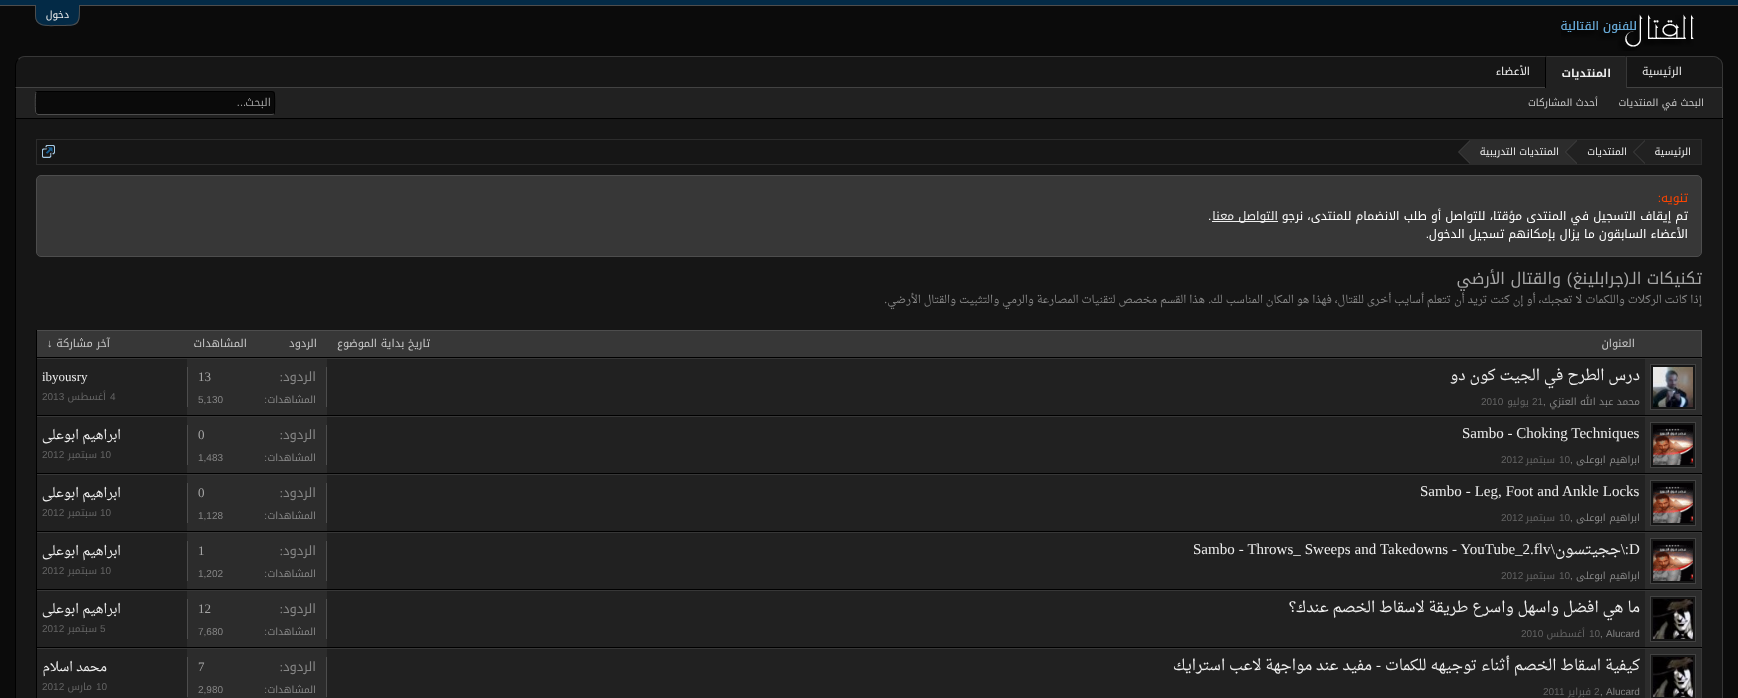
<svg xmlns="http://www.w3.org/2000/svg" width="1738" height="698">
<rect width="100%" height="100%" fill="#0b0b0b"/>
<rect width="1738" height="5" fill="#032a46"/>
<rect y="5" width="1738" height="1" fill="#4d4d4d"/>
<path d="M35 5h45v11c0 5.5-4.5 10-10 10h-25c-5.5 0-10-4.5-10-10z" fill="#032a46"/>
<path d="M35 5h45c0 21 0 21-22 21c-8 0-23 2-23-10zm1 0h43c0 20 0 20-21 20c-8 0-22 2-22-9z" fill="#4d4d4d" fill-rule="evenodd"/>
<text x="69" y="18" style="font-family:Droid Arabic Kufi;font-size:10px;direction:rtl;fill:#eee">دخول</text>
<image x="1561" y="14" width="133" height="37" href="media/1.png"/>
<path d="M25 56h1688c5.5 0 10 4.5 10 10v22h-1708v-22c0-5.5 4.5-10 10-10z" fill="#161616"/>
<path d="M25 56c-3 0-5 1-7 3l1 1c1-2 3-3 6-3h1688c3 0 5 1 6 3l1-1c-2-2-4-3-7-3z" fill="#373737"/>
<path d="M1723 88v-22c0-3-1-5.5-3-7l-.5 .5c1.5 1.5 2.5 4 2.5 6.5v21z" fill="#373737"/>
<path d="M1723 88l-1-1h-1706l-1 1z" fill="#424242"/>
<path d="M15 88l1-1v-21c0-2.5 1-5 2.5-6.5l-.5-.5c-2 1.5-3 4-3 7z" fill="#000"/>
<text x="1682" y="75" style="font-family:Droid Arabic Kufi;font-size:11px;direction:rtl;fill:#eee">الرئيسية</text>
<text x="1530" y="75" style="font-family:Droid Arabic Kufi;font-size:11px;direction:rtl;fill:#eee">الأعضاء</text>
<path d="M1547 56h78c1 0 2 1 2 2v32h-82v-32c0-1 1-2 2-2z" fill="#212121"/>
<path d="M1547 56l-1 1v1l1-1h79l-1-1z" fill="#373737"/>
<path d="M1627 90v-32l-.5-1.5l-.5 .5v32z" fill="#373737"/>
<path d="M1545 90l1-1v-31l.5-.5l-1-1l-.5 1.5z" fill="#000"/>
<text x="1611" y="77" style="font-family:Droid Arabic Kufi;font-size:11px;font-weight:bold;direction:rtl;fill:#eee">المنتديات</text>
<rect x="16" y="88" width="1706" height="30" fill="#212121"/>
<rect x="1722" y="118" width="1" height="580" fill="#373737"/>
<rect x="1722" y="88" width="1" height="31" fill="#424242"/>
<rect x="15" y="118" width="1" height="580" fill="#000"/>
<rect x="15" y="118" width="1708" height="1" fill="#000"/>
<rect x="15" y="88" width="1" height="31" fill="#000"/>
<text x="1704" y="106" style="font-family:Droid Arabic Kufi;font-size:10px;direction:rtl;fill:#c8c8c8">البحث في المنتديات</text>
<text x="1598" y="106" style="font-family:Droid Arabic Kufi;font-size:10px;direction:rtl;fill:#c8c8c8">أحدث المشاركات</text>
<rect x="35" y="91" width="240" height="24" rx="3" fill="#0a0a0a"/>
<path d="M36 92l2-.5h234l2 1c1 1 1 20 0 21.5" fill="none" stroke="#000"/>
<path d="M274 114l-2 .5h-234l-2-1c-1-1-1-20 0-21.5" fill="none" stroke="#4d4d4d"/>
<text x="271" y="106" style="font-family:Droid Arabic Kufi;font-size:11px;direction:rtl;fill:#a0a0a0">البحث</text>
<text x="246" y="106" style="font-family:Liberation Sans;font-size:11px;direction:rtl;fill:#a0a0a0">...</text>
<rect x="16" y="119" width="1706" height="579" fill="#161616"/>
<rect x="36.5" y="139.5" width="1665" height="25" fill="none" stroke="#2c2c2c"/>
<rect x="1577" y="140" width="124" height="24" fill="#212121"/>
<text x="1691" y="155" style="font-family:Droid Arabic Kufi;font-size:10px;direction:rtl;fill:#eee">الرئيسية</text>
<path d="M1645 140v24l-12-12z" fill="#424242"/>
<path d="M1646 140v24l-12-12z" fill="#212121"/>
<text x="1627" y="155" style="font-family:Droid Arabic Kufi;font-size:10px;direction:rtl;fill:#eee">المنتديات</text>
<rect x="1470" y="140" width="107" height="24" fill="#2c2c2c"/>
<path d="M1577 140v24l-12-12z" fill="#424242"/>
<path d="M1578 140v24l-12-12z" fill="#212121"/>
<text x="1559" y="155" style="font-family:Droid Arabic Kufi;font-size:10px;direction:rtl;fill:#eee">المنتديات التدريبية</text>
<path d="M1470 140v24l-12-12z" fill="#424242"/>
<path d="M1471 140v24l-12-12z" fill="#2c2c2c"/>
<image x="42" y="145" width="13" height="13" href="media/2.png"/>
<rect x="36.5" y="175.5" width="1665" height="81" rx="4.5" fill="#373737" stroke="#4d4d4d"/>
<text x="1688" y="202" style="font-family:Droid Arabic Kufi;font-size:12px;direction:rtl;fill:#ff4500">تنويه</text>
<text x="1661" y="202" style="font-family:Liberation Sans;font-size:12px;direction:rtl;fill:#ff4500">:</text>
<text x="1688" y="220" style="font-family:Droid Arabic Kufi;font-size:12px;direction:rtl;fill:#fff">تم إيقاف التسجيل في المنتدى مؤقتا، للتواصل أو طلب الانضمام للمنتدى، نرجو</text>
<rect x="1212" y="221" width="66" height="1" fill="#eee"/>
<text x="1278" y="220" style="font-family:Droid Arabic Kufi;font-size:12px;direction:rtl;fill:#eee">التواصل معنا</text>
<text x="1208" y="220" style="font-family:Liberation Sans;font-size:12px;fill:#fff">.</text>
<text x="1688" y="238" style="font-family:Droid Arabic Kufi;font-size:12px;direction:rtl;fill:#fff">الأعضاء السابقون ما يزال بإمكانهم تسجيل الدخول</text>
<text x="1429" y="238" style="font-family:Liberation Sans;font-size:12px;direction:rtl;fill:#fff">.</text>
<text x="1629" y="284" style="font-family:Liberation Sans;font-size:16px;direction:rtl;fill:#a6a6a6">(</text>
<text x="1702" y="284" style="font-family:Droid Arabic Kufi;font-size:16px;direction:rtl;fill:#a6a6a6">تكنيكات الـ</text>
<text x="1624" y="284" style="font-family:Droid Arabic Kufi;font-size:16px;direction:rtl;fill:#a6a6a6">جرابلينغ</text>
<text x="1572" y="284" style="font-family:Liberation Sans;font-size:16px;direction:rtl;fill:#a6a6a6">)</text>
<text x="1561" y="284" style="font-family:Droid Arabic Kufi;font-size:16px;direction:rtl;fill:#a6a6a6">والقتال الأرضي</text>
<text x="1702" y="303" style="font-family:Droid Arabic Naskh;font-size:11px;direction:rtl;fill:#868686">إذا كانت الركلات واللكمات لا تعجبك، أو إن كنت تريد أن تتعلم أسايب أخرى للقتال، فهذا هو المكان المناسب لك</text>
<text x="1211" y="303" style="font-family:Liberation Serif;font-size:11px;direction:rtl;fill:#868686">.</text>
<text x="1205" y="303" style="font-family:Droid Arabic Naskh;font-size:11px;direction:rtl;fill:#868686">هذا القسم مخصص لتقنيات المصارعة والرمي والتثبيت والقتال الأرضي</text>
<text x="887" y="303" style="font-family:Liberation Serif;font-size:11px;direction:rtl;fill:#868686">.</text>
<rect x="37" y="331" width="1664" height="26" fill="#373737"/>
<rect x="36" y="330" width="1666" height="1" fill="#4d4d4d"/>
<rect x="1701" y="330" width="1" height="28" fill="#4d4d4d"/>
<rect x="36" y="357" width="1666" height="1" fill="#000"/>
<rect x="36" y="330" width="1" height="28" fill="#000"/>
<text x="1635" y="347" style="font-family:Droid Arabic Kufi;font-size:11px;direction:rtl;fill:#c8c8c8">العنوان</text>
<text x="430" y="347" style="font-family:Droid Arabic Kufi;font-size:11px;direction:rtl;fill:#c8c8c8">تاريخ بداية الموضوع</text>
<text x="317" y="347" style="font-family:Droid Arabic Kufi;font-size:11px;direction:rtl;fill:#c8c8c8">الردود</text>
<text x="247" y="347" style="font-family:Droid Arabic Kufi;font-size:11px;direction:rtl;fill:#c8c8c8">المشاهدات</text>
<text x="110" y="347" style="font-family:Droid Arabic Kufi;font-size:11px;direction:rtl;fill:#c8c8c8">آخر مشاركة</text>
<text x="47" y="347" style="font-family:Liberation Sans;font-size:11px;fill:#c8c8c8">↓</text>
<rect x="37" y="359" width="1608" height="56" fill="#212121"/>
<rect x="36" y="358" width="1666" height="1" fill="#373737"/>
<rect x="1701" y="358" width="1" height="58" fill="#373737"/>
<rect x="36" y="415" width="1666" height="1" fill="#000"/>
<rect x="36" y="358" width="1" height="58" fill="#000"/>
<rect x="1645" y="359" width="56" height="56" fill="#2c2c2c"/>
<rect x="1650.5" y="364.5" width="45" height="45" fill="#161616" stroke="#424242"/>
<image x="1653" y="367" width="40" height="40" href="media/3.png"/>
<text x="1640" y="380" style="font-family:Droid Arabic Naskh;font-size:15px;direction:rtl;fill:#eee">درس الطرح في الجيت كون دو</text>
<text x="1640" y="405" style="font-family:Droid Arabic Kufi;font-size:10px;direction:rtl;fill:#868686">محمد عبد الله العنزي</text>
<text x="1543" y="405" style="font-family:Liberation Sans;font-size:10px;fill:#868686">,</text>
<text x="1532" y="405" style="font-family:Liberation Sans;font-size:10px;fill:#646464">21</text>
<text x="1529" y="405" style="font-family:Droid Arabic Kufi;font-size:10px;direction:rtl;fill:#646464">يوليو</text>
<text x="1481" y="405" style="font-family:Liberation Sans;font-size:10px;fill:#646464">2010</text>
<rect x="187" y="359" width="140" height="56" fill="#2c2c2c"/>
<rect x="326" y="367" width="1" height="40" fill="#4d4d4d"/>
<rect x="187" y="367" width="1" height="40" fill="#4d4d4d"/>
<text x="316" y="381" style="font-family:Droid Arabic Kufi;font-size:13px;direction:rtl;fill:#868686">الردود</text>
<text x="283" y="381" style="font-family:Liberation Serif;font-size:13px;direction:rtl;fill:#868686">:</text>
<text x="198" y="381" style="font-family:Liberation Serif;font-size:13px;fill:#a6a6a6">13</text>
<text x="316" y="403" style="font-family:Droid Arabic Kufi;font-size:10px;direction:rtl;fill:#868686">المشاهدات</text>
<text x="267" y="403" style="font-family:Liberation Sans;font-size:10px;direction:rtl;fill:#868686">:</text>
<text x="198" y="403" style="font-family:Liberation Sans;font-size:10px;fill:#868686">5,130</text>
<text x="42" y="381" style="font-family:Liberation Serif;font-size:13px;fill:#eee">ibyousry</text>
<text x="110" y="400" style="font-family:Liberation Sans;font-size:10px;fill:#646464">4</text>
<text x="106" y="400" style="font-family:Droid Arabic Kufi;font-size:10px;direction:rtl;fill:#646464">أغسطس</text>
<text x="42" y="400" style="font-family:Liberation Sans;font-size:10px;fill:#646464">2013</text>
<rect x="37" y="417" width="1608" height="56" fill="#212121"/>
<rect x="36" y="416" width="1666" height="1" fill="#373737"/>
<rect x="1701" y="416" width="1" height="58" fill="#373737"/>
<rect x="36" y="473" width="1666" height="1" fill="#000"/>
<rect x="36" y="416" width="1" height="58" fill="#000"/>
<rect x="1645" y="417" width="56" height="56" fill="#2c2c2c"/>
<rect x="1650.5" y="422.5" width="45" height="45" fill="#161616" stroke="#424242"/>
<image x="1653" y="425" width="40" height="40" href="media/4.png"/>
<text x="1462" y="438" style="font-family:Liberation Serif;font-size:15px;fill:#eee">Sambo - Choking Techniques</text>
<text x="1640" y="463" style="font-family:Droid Arabic Kufi;font-size:10px;direction:rtl;fill:#868686">ابراهيم ابوعلى</text>
<text x="1570" y="463" style="font-family:Liberation Sans;font-size:10px;fill:#868686">,</text>
<text x="1559" y="463" style="font-family:Liberation Sans;font-size:10px;fill:#646464">10</text>
<text x="1555" y="463" style="font-family:Droid Arabic Kufi;font-size:10px;direction:rtl;fill:#646464">سبتمبر</text>
<text x="1501" y="463" style="font-family:Liberation Sans;font-size:10px;fill:#646464">2012</text>
<rect x="187" y="417" width="140" height="56" fill="#2c2c2c"/>
<rect x="326" y="425" width="1" height="40" fill="#4d4d4d"/>
<rect x="187" y="425" width="1" height="40" fill="#4d4d4d"/>
<text x="316" y="439" style="font-family:Droid Arabic Kufi;font-size:13px;direction:rtl;fill:#868686">الردود</text>
<text x="283" y="439" style="font-family:Liberation Serif;font-size:13px;direction:rtl;fill:#868686">:</text>
<text x="198" y="439" style="font-family:Liberation Serif;font-size:13px;fill:#a6a6a6">0</text>
<text x="316" y="461" style="font-family:Droid Arabic Kufi;font-size:10px;direction:rtl;fill:#868686">المشاهدات</text>
<text x="267" y="461" style="font-family:Liberation Sans;font-size:10px;direction:rtl;fill:#868686">:</text>
<text x="198" y="461" style="font-family:Liberation Sans;font-size:10px;fill:#868686">1,483</text>
<text x="121" y="439" style="font-family:Droid Arabic Naskh;font-size:13px;direction:rtl;fill:#eee">ابراهيم ابوعلى</text>
<text x="100" y="458" style="font-family:Liberation Sans;font-size:10px;fill:#646464">10</text>
<text x="97" y="458" style="font-family:Droid Arabic Kufi;font-size:10px;direction:rtl;fill:#646464">سبتمبر</text>
<text x="42" y="458" style="font-family:Liberation Sans;font-size:10px;fill:#646464">2012</text>
<rect x="37" y="475" width="1608" height="56" fill="#212121"/>
<rect x="36" y="474" width="1666" height="1" fill="#373737"/>
<rect x="1701" y="474" width="1" height="58" fill="#373737"/>
<rect x="36" y="531" width="1666" height="1" fill="#000"/>
<rect x="36" y="474" width="1" height="58" fill="#000"/>
<rect x="1645" y="475" width="56" height="56" fill="#2c2c2c"/>
<rect x="1650.5" y="480.5" width="45" height="45" fill="#161616" stroke="#424242"/>
<image x="1653" y="483" width="40" height="40" href="media/4.png"/>
<text x="1420" y="496" word-spacing="0.25" style="font-family:Liberation Serif;font-size:15px;fill:#eee">Sambo - Leg, Foot and Ankle Locks</text>
<text x="1640" y="521" style="font-family:Droid Arabic Kufi;font-size:10px;direction:rtl;fill:#868686">ابراهيم ابوعلى</text>
<text x="1570" y="521" style="font-family:Liberation Sans;font-size:10px;fill:#868686">,</text>
<text x="1559" y="521" style="font-family:Liberation Sans;font-size:10px;fill:#646464">10</text>
<text x="1555" y="521" style="font-family:Droid Arabic Kufi;font-size:10px;direction:rtl;fill:#646464">سبتمبر</text>
<text x="1501" y="521" style="font-family:Liberation Sans;font-size:10px;fill:#646464">2012</text>
<rect x="187" y="475" width="140" height="56" fill="#2c2c2c"/>
<rect x="326" y="483" width="1" height="40" fill="#4d4d4d"/>
<rect x="187" y="483" width="1" height="40" fill="#4d4d4d"/>
<text x="316" y="497" style="font-family:Droid Arabic Kufi;font-size:13px;direction:rtl;fill:#868686">الردود</text>
<text x="283" y="497" style="font-family:Liberation Serif;font-size:13px;direction:rtl;fill:#868686">:</text>
<text x="198" y="497" style="font-family:Liberation Serif;font-size:13px;fill:#a6a6a6">0</text>
<text x="316" y="519" style="font-family:Droid Arabic Kufi;font-size:10px;direction:rtl;fill:#868686">المشاهدات</text>
<text x="267" y="519" style="font-family:Liberation Sans;font-size:10px;direction:rtl;fill:#868686">:</text>
<text x="198" y="519" style="font-family:Liberation Sans;font-size:10px;fill:#868686">1,128</text>
<text x="121" y="497" style="font-family:Droid Arabic Naskh;font-size:13px;direction:rtl;fill:#eee">ابراهيم ابوعلى</text>
<text x="100" y="516" style="font-family:Liberation Sans;font-size:10px;fill:#646464">10</text>
<text x="97" y="516" style="font-family:Droid Arabic Kufi;font-size:10px;direction:rtl;fill:#646464">سبتمبر</text>
<text x="42" y="516" style="font-family:Liberation Sans;font-size:10px;fill:#646464">2012</text>
<rect x="37" y="533" width="1608" height="56" fill="#212121"/>
<rect x="36" y="532" width="1666" height="1" fill="#373737"/>
<rect x="1701" y="532" width="1" height="58" fill="#373737"/>
<rect x="36" y="589" width="1666" height="1" fill="#000"/>
<rect x="36" y="532" width="1" height="58" fill="#000"/>
<rect x="1645" y="533" width="56" height="56" fill="#2c2c2c"/>
<rect x="1650.5" y="538.5" width="45" height="45" fill="#161616" stroke="#424242"/>
<image x="1653" y="541" width="40" height="40" href="media/4.png"/>
<text x="1629" y="554" style="font-family:Liberation Serif;font-size:15px;direction:rtl;fill:#eee">:\</text>
<text x="1629" y="554" style="font-family:Liberation Serif;font-size:15px;fill:#eee">D</text>
<text x="1621" y="554" style="font-family:Droid Arabic Naskh;font-size:15px;direction:rtl;fill:#eee">ججيتسون</text>
<text x="1193" y="554" word-spacing="0.25" style="font-family:Liberation Serif;font-size:15px;fill:#eee">Sambo - Throws_ Sweeps and Takedowns - YouTube_2.flv</text>
<text x="1555" y="554" style="font-family:Liberation Serif;font-size:15px;direction:rtl;fill:#eee">\</text>
<text x="1640" y="579" style="font-family:Droid Arabic Kufi;font-size:10px;direction:rtl;fill:#868686">ابراهيم ابوعلى</text>
<text x="1570" y="579" style="font-family:Liberation Sans;font-size:10px;fill:#868686">,</text>
<text x="1559" y="579" style="font-family:Liberation Sans;font-size:10px;fill:#646464">10</text>
<text x="1555" y="579" style="font-family:Droid Arabic Kufi;font-size:10px;direction:rtl;fill:#646464">سبتمبر</text>
<text x="1501" y="579" style="font-family:Liberation Sans;font-size:10px;fill:#646464">2012</text>
<rect x="187" y="533" width="140" height="56" fill="#2c2c2c"/>
<rect x="326" y="541" width="1" height="40" fill="#4d4d4d"/>
<rect x="187" y="541" width="1" height="40" fill="#4d4d4d"/>
<text x="316" y="555" style="font-family:Droid Arabic Kufi;font-size:13px;direction:rtl;fill:#868686">الردود</text>
<text x="283" y="555" style="font-family:Liberation Serif;font-size:13px;direction:rtl;fill:#868686">:</text>
<text x="198" y="555" style="font-family:Liberation Serif;font-size:13px;fill:#a6a6a6">1</text>
<text x="316" y="577" style="font-family:Droid Arabic Kufi;font-size:10px;direction:rtl;fill:#868686">المشاهدات</text>
<text x="267" y="577" style="font-family:Liberation Sans;font-size:10px;direction:rtl;fill:#868686">:</text>
<text x="198" y="577" style="font-family:Liberation Sans;font-size:10px;fill:#868686">1,202</text>
<text x="121" y="555" style="font-family:Droid Arabic Naskh;font-size:13px;direction:rtl;fill:#eee">ابراهيم ابوعلى</text>
<text x="100" y="574" style="font-family:Liberation Sans;font-size:10px;fill:#646464">10</text>
<text x="97" y="574" style="font-family:Droid Arabic Kufi;font-size:10px;direction:rtl;fill:#646464">سبتمبر</text>
<text x="42" y="574" style="font-family:Liberation Sans;font-size:10px;fill:#646464">2012</text>
<rect x="37" y="591" width="1608" height="56" fill="#212121"/>
<rect x="36" y="590" width="1666" height="1" fill="#373737"/>
<rect x="1701" y="590" width="1" height="58" fill="#373737"/>
<rect x="36" y="647" width="1666" height="1" fill="#000"/>
<rect x="36" y="590" width="1" height="58" fill="#000"/>
<rect x="1645" y="591" width="56" height="56" fill="#2c2c2c"/>
<rect x="1650.5" y="596.5" width="45" height="45" fill="#161616" stroke="#424242"/>
<image x="1653" y="599" width="40" height="40" href="media/5.png"/>
<text x="1640" y="612" style="font-family:Droid Arabic Naskh;font-size:15px;direction:rtl;fill:#eee">ما هي افضل واسهل واسرع طريقة لاسقاط الخصم عندك؟</text>
<text x="1606" y="637" style="font-family:Liberation Sans;font-size:10px;fill:#868686">Alucard</text>
<text x="1600" y="637" style="font-family:Liberation Sans;font-size:10px;fill:#868686">,</text>
<text x="1589" y="637" style="font-family:Liberation Sans;font-size:10px;fill:#646464">10</text>
<text x="1585" y="637" style="font-family:Droid Arabic Kufi;font-size:10px;direction:rtl;fill:#646464">أغسطس</text>
<text x="1521" y="637" style="font-family:Liberation Sans;font-size:10px;fill:#646464">2010</text>
<rect x="187" y="591" width="140" height="56" fill="#2c2c2c"/>
<rect x="326" y="599" width="1" height="40" fill="#4d4d4d"/>
<rect x="187" y="599" width="1" height="40" fill="#4d4d4d"/>
<text x="316" y="613" style="font-family:Droid Arabic Kufi;font-size:13px;direction:rtl;fill:#868686">الردود</text>
<text x="283" y="613" style="font-family:Liberation Serif;font-size:13px;direction:rtl;fill:#868686">:</text>
<text x="198" y="613" style="font-family:Liberation Serif;font-size:13px;fill:#a6a6a6">12</text>
<text x="316" y="635" style="font-family:Droid Arabic Kufi;font-size:10px;direction:rtl;fill:#868686">المشاهدات</text>
<text x="267" y="635" style="font-family:Liberation Sans;font-size:10px;direction:rtl;fill:#868686">:</text>
<text x="198" y="635" style="font-family:Liberation Sans;font-size:10px;fill:#868686">7,680</text>
<text x="121" y="613" style="font-family:Droid Arabic Naskh;font-size:13px;direction:rtl;fill:#eee">ابراهيم ابوعلى</text>
<text x="100" y="632" style="font-family:Liberation Sans;font-size:10px;fill:#646464">5</text>
<text x="97" y="632" style="font-family:Droid Arabic Kufi;font-size:10px;direction:rtl;fill:#646464">سبتمبر</text>
<text x="42" y="632" style="font-family:Liberation Sans;font-size:10px;fill:#646464">2012</text>
<rect x="37" y="649" width="1608" height="49" fill="#212121"/>
<rect x="36" y="648" width="1666" height="1" fill="#373737"/>
<rect x="1701" y="648" width="1" height="50" fill="#373737"/>
<rect x="36" y="648" width="1" height="50" fill="#000"/>
<rect x="1645" y="649" width="56" height="49" fill="#2c2c2c"/>
<rect x="1650.5" y="654.5" width="45" height="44" fill="#161616" stroke="#424242"/>
<image x="1653" y="657" width="40" height="40" href="media/5.png"/>
<text x="1640" y="670" style="font-family:Droid Arabic Naskh;font-size:15px;direction:rtl;fill:#eee">كيفية اسقاط الخصم أثناء توجيهه للكمات</text>
<text x="1381" y="670" style="font-family:Liberation Serif;font-size:15px;direction:rtl;fill:#eee">-</text>
<text x="1372" y="670" style="font-family:Droid Arabic Naskh;font-size:15px;direction:rtl;fill:#eee">مفيد عند مواجهة لاعب استرايك</text>
<text x="1606" y="695" style="font-family:Liberation Sans;font-size:10px;fill:#868686">Alucard</text>
<text x="1600" y="695" style="font-family:Liberation Sans;font-size:10px;fill:#868686">,</text>
<text x="1594" y="695" style="font-family:Liberation Sans;font-size:10px;fill:#646464">2</text>
<text x="1591" y="695" style="font-family:Droid Arabic Kufi;font-size:10px;direction:rtl;fill:#646464">فبراير</text>
<text x="1543" y="695" style="font-family:Liberation Sans;font-size:10px;fill:#646464">2011</text>
<rect x="187" y="649" width="140" height="49" fill="#2c2c2c"/>
<rect x="326" y="657" width="1" height="40" fill="#4d4d4d"/>
<rect x="187" y="657" width="1" height="40" fill="#4d4d4d"/>
<text x="316" y="671" style="font-family:Droid Arabic Kufi;font-size:13px;direction:rtl;fill:#868686">الردود</text>
<text x="283" y="671" style="font-family:Liberation Serif;font-size:13px;direction:rtl;fill:#868686">:</text>
<text x="198" y="671" style="font-family:Liberation Serif;font-size:13px;fill:#a6a6a6">7</text>
<text x="316" y="693" style="font-family:Droid Arabic Kufi;font-size:10px;direction:rtl;fill:#868686">المشاهدات</text>
<text x="267" y="693" style="font-family:Liberation Sans;font-size:10px;direction:rtl;fill:#868686">:</text>
<text x="198" y="693" style="font-family:Liberation Sans;font-size:10px;fill:#868686">2,980</text>
<text x="107" y="671" style="font-family:Droid Arabic Naskh;font-size:13px;direction:rtl;fill:#eee">محمد اسلام</text>
<text x="96" y="690" style="font-family:Liberation Sans;font-size:10px;fill:#646464">10</text>
<text x="92" y="690" style="font-family:Droid Arabic Kufi;font-size:10px;direction:rtl;fill:#646464">مارس</text>
<text x="42" y="690" style="font-family:Liberation Sans;font-size:10px;fill:#646464">2012</text>
</svg>
